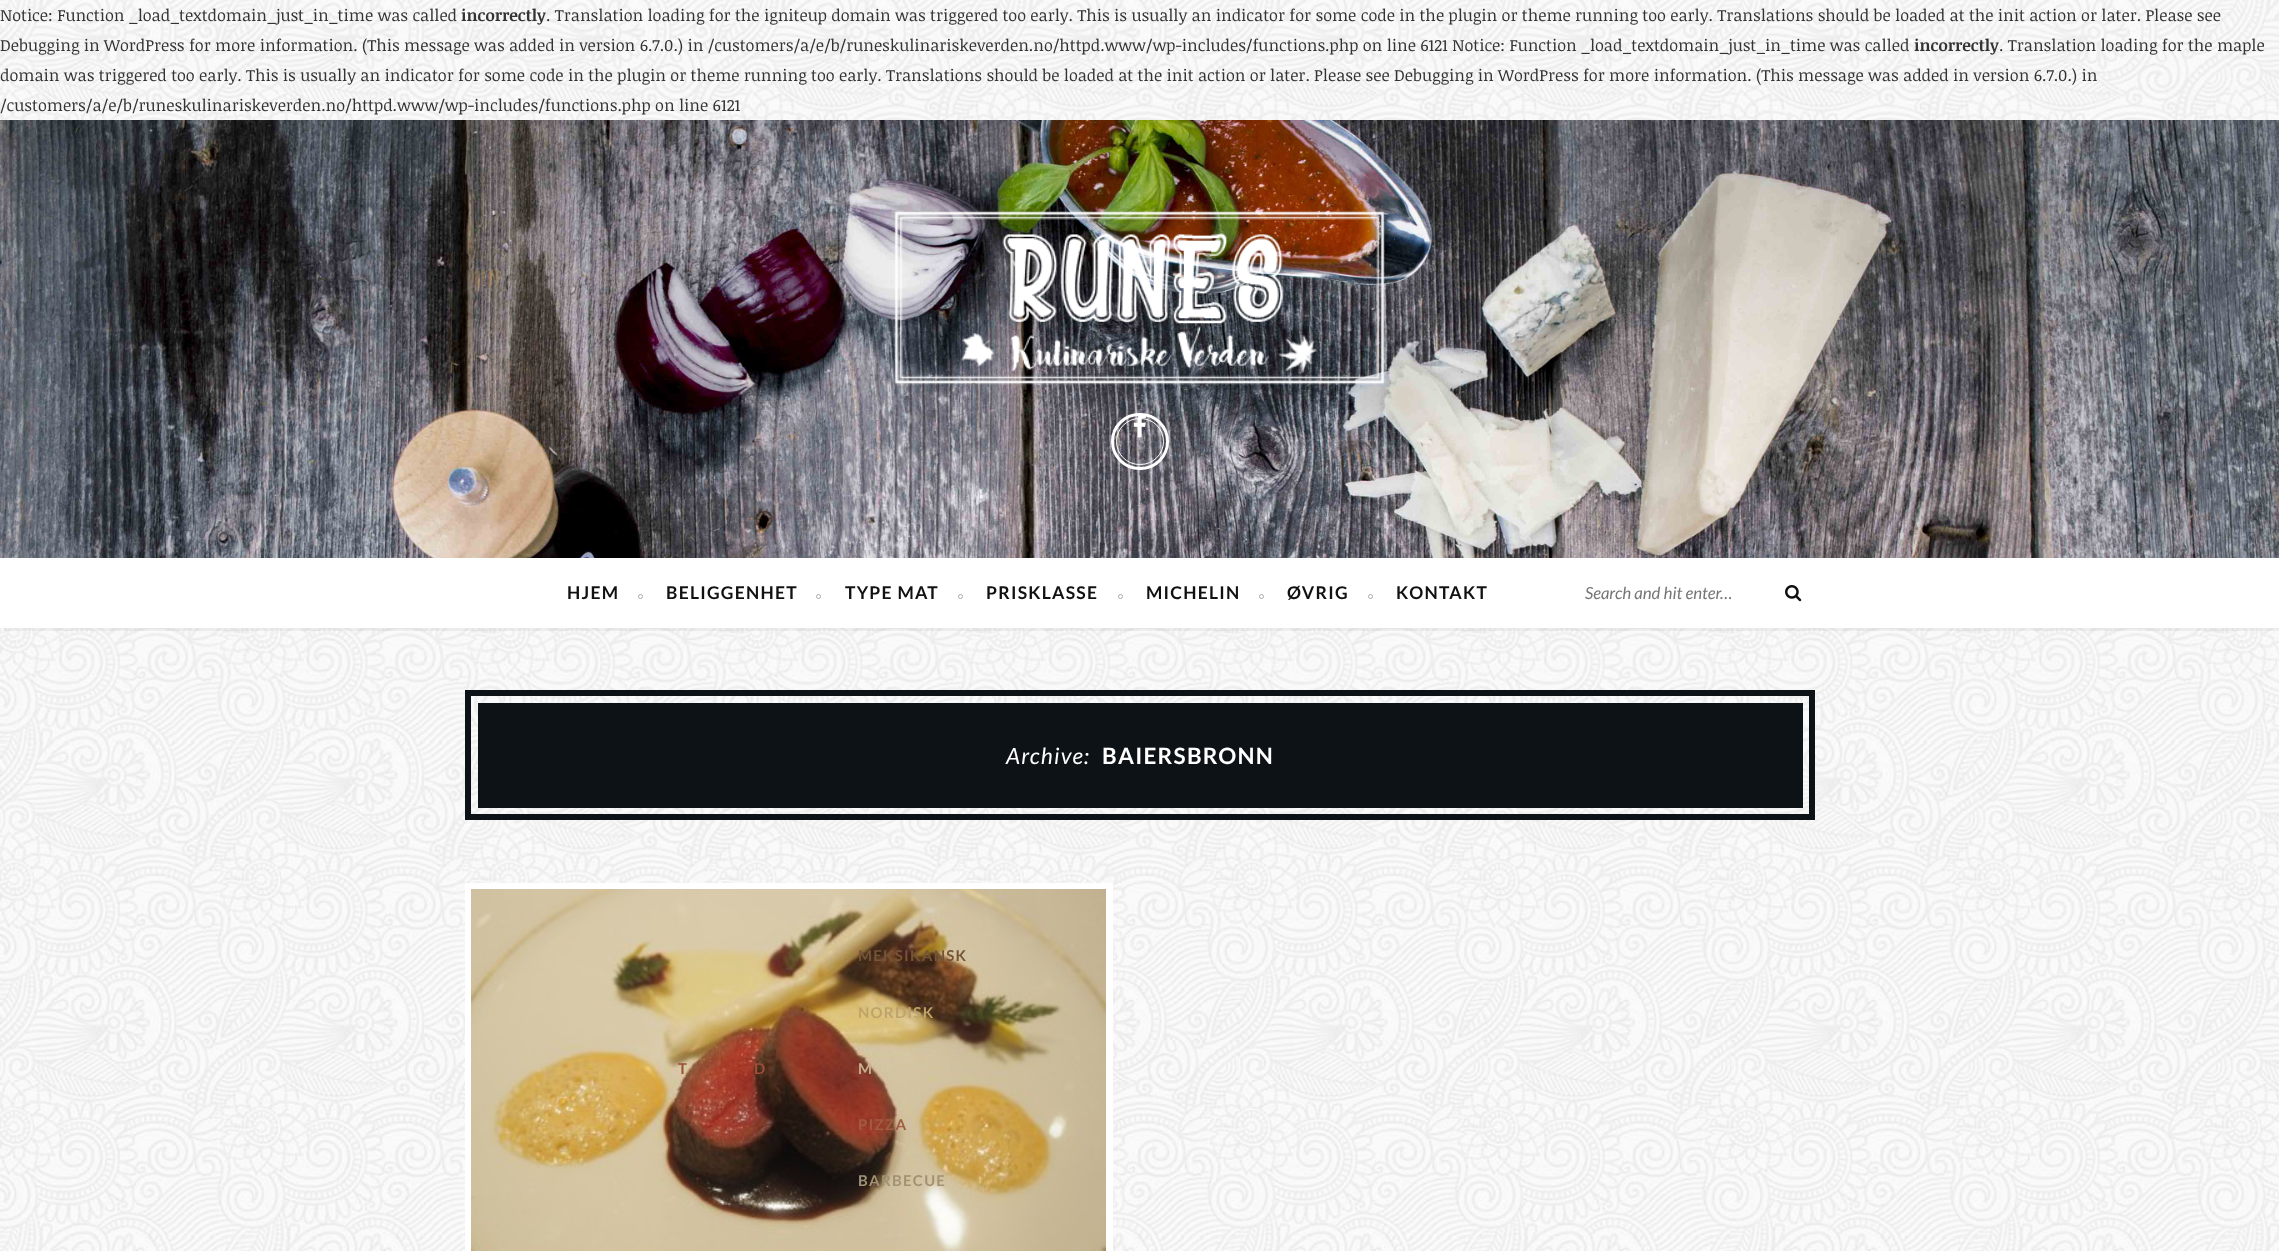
<svg xmlns="http://www.w3.org/2000/svg" width="2279" height="1251">
<rect width="100%" height="100%" fill="#fff"/>
<image x="0" y="0" width="2279" height="1251" href="media/1.png"/>
<text x="0" y="21" style="font-family:Noticia Text;font-size:16.25px;fill:#333">Notice: Function _load_textdomain_just_in_time was called</text>
<text x="461" y="21" style="font-family:Noticia Text;font-size:16.25px;font-weight:bold;fill:#333">incorrectly</text>
<text x="546" y="21" style="font-family:Noticia Text;font-size:16.25px;fill:#333">. Translation loading for the igniteup domain was triggered too early. This is usually an indicator for some code in the plugin or theme running too early. Translations should be loaded at the init action or later. Please see</text>
<text x="0" y="51" style="font-family:Noticia Text;font-size:16.25px;fill:#333">Debugging in WordPress for more information. (This message was added in version 6.7.0.) in /customers/a/e/b/runeskulinariskeverden.no/httpd.www/wp-includes/functions.php on line 6121 Notice: Function _load_textdomain_just_in_time was called</text>
<text x="1914" y="51" style="font-family:Noticia Text;font-size:16.25px;font-weight:bold;fill:#333">incorrectly</text>
<text x="1999" y="51" style="font-family:Noticia Text;font-size:16.25px;fill:#333">. Translation loading for the maple</text>
<text x="0" y="81" style="font-family:Noticia Text;font-size:16.25px;fill:#333">domain was triggered too early. This is usually an indicator for some code in the plugin or theme running too early. Translations should be loaded at the init action or later. Please see Debugging in WordPress for more information. (This message was added in version 6.7.0.) in</text>
<text x="0" y="111" style="font-family:Noticia Text;font-size:16.25px;fill:#333">/customers/a/e/b/runeskulinariskeverden.no/httpd.www/wp-includes/functions.php on line 6121</text>
<image x="0" y="120" width="2279" height="438" href="media/2.png"/>
<image x="894" y="210" width="491" height="175" href="media/3.png"/>
<rect x="1112.5" y="414.5" width="55" height="54" rx="27" fill="none" stroke="#fff" stroke-width="3"/>
<image x="1133" y="416" width="13" height="22" href="media/4.png"/>
<rect x="1116.5" y="418.5" width="47" height="46" rx="23" fill="none" stroke="#fff"/>
<rect x="4" y="561" width="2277" height="70" fill="#0000000d" filter="blur(0.5px)"/>
<rect y="558" width="2279" height="70" fill="#fff"/>
<text x="567" y="599" style="font-family:Lato;font-size:17.5px;font-weight:bold;letter-spacing:1.25px;fill:#111">HJEM</text>
<circle cx="640.5" cy="596.5" r="2" fill="none" stroke="#aaa"/>
<text x="666" y="599" style="font-family:Lato;font-size:17.5px;font-weight:bold;letter-spacing:1.25px;fill:#111">BELIGGENHET</text>
<circle cx="818.5" cy="596.5" r="2" fill="none" stroke="#aaa"/>
<rect x="465" y="883" width="648" height="368" fill="#fff"/>
<image x="471" y="889" width="635" height="362" href="media/6.png"/>
<text x="678" y="1074" style="font-family:Lato;font-size:15px;font-weight:bold;letter-spacing:1.25px;fill:#9c5039">T</text>
<text x="754" y="1074" style="font-family:Lato;font-size:15px;font-weight:bold;letter-spacing:1.25px;fill:#9c5039">D</text>
<text x="845" y="599" style="font-family:Lato;font-size:17.5px;font-weight:bold;letter-spacing:1.25px;fill:#111">TYPE MAT</text>
<circle cx="960.5" cy="596.5" r="2" fill="none" stroke="#aaa"/>
<text x="858" y="961" style="font-family:Lato;font-size:15px;font-weight:bold;letter-spacing:1.25px;fill:#745537">MEKSIKANSK</text>
<text x="858" y="1018" style="font-family:Lato;font-size:15px;font-weight:bold;letter-spacing:1.25px;fill:#bea469">NORDISK</text>
<text x="858" y="1074" style="font-family:Lato;font-size:15px;font-weight:bold;letter-spacing:1.25px;fill:#c7b292">M</text>
<text x="858" y="1130" style="font-family:Lato;font-size:15px;font-weight:bold;letter-spacing:1.25px;fill:#a15b43">PIZZA</text>
<text x="858" y="1186" style="font-family:Lato;font-size:15px;font-weight:bold;letter-spacing:1.25px;fill:#a19276">BARBECUE</text>
<text x="986" y="599" style="font-family:Lato;font-size:17.5px;font-weight:bold;letter-spacing:1.25px;fill:#111">PRISKLASSE</text>
<circle cx="1120.5" cy="596.5" r="2" fill="none" stroke="#aaa"/>
<text x="1146" y="599" style="font-family:Lato;font-size:17.5px;font-weight:bold;letter-spacing:1.25px;fill:#111">MICHELIN</text>
<circle cx="1261.5" cy="596.5" r="2" fill="none" stroke="#aaa"/>
<text x="1287" y="599" style="font-family:Lato;font-size:17.5px;font-weight:bold;letter-spacing:1.25px;fill:#111">ØVRIG</text>
<circle cx="1370.5" cy="596.5" r="2" fill="none" stroke="#aaa"/>
<text x="1396" y="599" style="font-family:Lato;font-size:17.5px;font-weight:bold;letter-spacing:1.25px;fill:#111">KONTAKT</text>
<text x="1585" y="599" style="font-family:Lato;font-size:16.75px;font-style:italic;fill:#757575">Search and hit enter…</text>
<image x="1785" y="585" width="17" height="17" href="media/5.png"/>
<rect x="478" y="703" width="1325" height="105" fill="#0d1217"/>
<rect x="468" y="693" width="1344" height="124" fill="none" stroke="#0d1217" stroke-width="6"/>
<text x="1006" y="764" style="font-family:Lato;font-size:22.5px;font-style:italic;letter-spacing:1.25px;fill:#fff">Archive:</text>
<text x="1102" y="764" style="font-family:Lato;font-size:22.5px;font-weight:bold;letter-spacing:1.25px;fill:#fff">BAIERSBRONN</text>
</svg>
